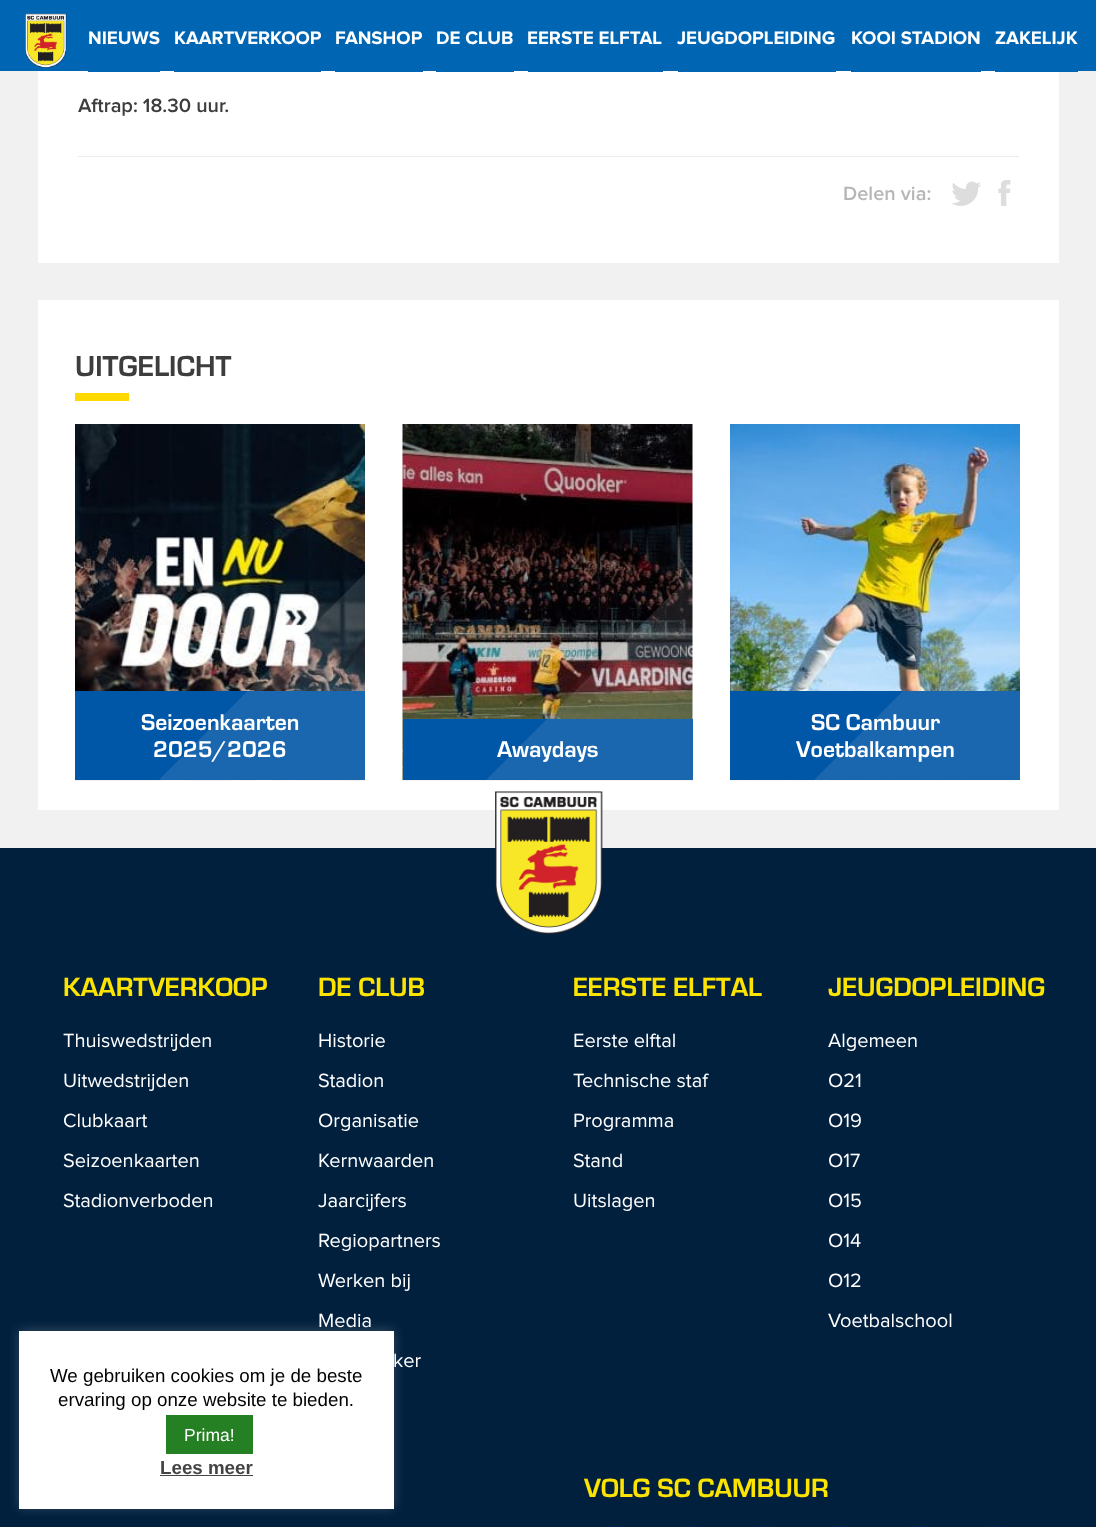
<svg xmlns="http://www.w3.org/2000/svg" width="1096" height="1527">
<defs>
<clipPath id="clip1"><rect x="56" y="424" width="328" height="356"/></clipPath>
<clipPath id="clip2"><rect x="384" y="424" width="327" height="356"/></clipPath>
<clipPath id="clip3"><rect x="711" y="424" width="328" height="356"/></clipPath>
</defs>
<rect width="100%" height="100%" fill="#f1f1f1"/>
<rect width="1096" height="71" fill="#0065b3"/>
<image x="25" y="13" width="42" height="55" href="media/1.png"/>
<rect x="38" y="71" width="1021" height="192" fill="#fff"/>
<rect x="88" y="71" width="72" height="1" fill="#0065b3"/>
<text x="88" y="44" style="font-family:Proxima Nova;font-size:18.75px;font-weight:bold;fill:#fff">NIEUWS</text>
<rect x="174" y="71" width="147" height="1" fill="#0065b3"/>
<text x="174" y="44" style="font-family:Proxima Nova;font-size:18.75px;font-weight:bold;fill:#fff">KAARTVERKOOP</text>
<rect x="335" y="71" width="88" height="1" fill="#0065b3"/>
<text x="335" y="44" style="font-family:Proxima Nova;font-size:18.75px;font-weight:bold;fill:#fff">FANSHOP</text>
<rect x="436" y="71" width="78" height="1" fill="#0065b3"/>
<text x="436" y="44" style="font-family:Proxima Nova;font-size:18.75px;font-weight:bold;fill:#fff">DE CLUB</text>
<rect x="528" y="71" width="135" height="1" fill="#0065b3"/>
<text x="527" y="44" style="font-family:Proxima Nova;font-size:18.75px;font-weight:bold;fill:#fff">EERSTE ELFTAL</text>
<rect x="678" y="71" width="158" height="1" fill="#0065b3"/>
<text x="677" y="44" style="font-family:Proxima Nova;font-size:18.75px;font-weight:bold;fill:#fff">JEUGDOPLEIDING</text>
<rect x="851" y="71" width="130" height="1" fill="#0065b3"/>
<text x="851" y="44" style="font-family:Proxima Nova;font-size:18.75px;font-weight:bold;fill:#fff">KOOI STADION</text>
<rect x="995" y="71" width="83" height="1" fill="#0065b3"/>
<text x="995" y="44" style="font-family:Proxima Nova;font-size:18.75px;font-weight:bold;fill:#fff">ZAKELIJK</text>
<text x="78" y="112" style="font-family:Proxima Nova;font-size:20px;font-weight:600;fill:#3d3d3d">Aftrap: 18.30 uur.</text>
<rect x="78" y="156" width="941" height="1" fill="#ececec"/>
<text x="843" y="200" style="font-family:Proxima Nova;font-size:20px;font-weight:600;fill:#b6b6b6">Delen via:</text>
<image x="951" y="181" width="30" height="25" href="media/2.png"/>
<image x="998" y="180" width="13" height="26" href="media/3.png"/>
<rect x="38" y="300" width="1021" height="510" fill="#fff"/>
<text x="75" y="376" style="font-family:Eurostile;font-size:30px;font-weight:bold;fill:#3d3d3d">UITGELICHT</text>
<rect x="75" y="393" width="54" height="8" fill="#ffd800"/>
<image x="75" y="424" width="290" height="357" href="media/4.png"/>
<rect x="75" y="691" width="290" height="89" fill="#0056a7"/>
<g clip-path="url(#clip1)">
<path d="M127 812l254-255l227 227l-255 255z" fill="#ffffff1a"/>
</g>
<text x="141" y="730" style="font-family:Eurostile;font-size:23.75px;font-weight:bold;fill:#fff">Seizoenkaarten</text>
<text x="153" y="757" style="font-family:Eurostile;font-size:23.75px;font-weight:bold;fill:#fff">2025/2026</text>
<image x="402" y="424" width="291" height="357" href="media/5.png"/>
<rect x="403" y="719" width="290" height="61" fill="#0056a7"/>
<g clip-path="url(#clip2)">
<path d="M454 812l255-255l227 227l-255 255z" fill="#ffffff1a"/>
</g>
<text x="497" y="757" style="font-family:Eurostile;font-size:23.75px;font-weight:bold;fill:#fff">Awaydays</text>
<image x="730" y="424" width="290" height="357" href="media/6.png"/>
<rect x="730" y="691" width="290" height="89" fill="#0056a7"/>
<g clip-path="url(#clip3)">
<path d="M782 812l255-255l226 227l-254 255z" fill="#ffffff1a"/>
</g>
<text x="811" y="730" style="font-family:Eurostile;font-size:23.75px;font-weight:bold;fill:#fff">SC Cambuur</text>
<text x="796" y="757" style="font-family:Eurostile;font-size:23.75px;font-weight:bold;fill:#fff">Voetbalkampen</text>
<rect y="848" width="1096" height="679" fill="#00203e"/>
<image x="495" y="791" width="108" height="143" href="media/7.png"/>
<text x="63" y="996" style="font-family:Eurostile;font-size:27.5px;font-weight:bold;fill:#fde400">KAARTVERKOOP</text>
<text x="63" y="1047" style="font-family:Proxima Nova;font-size:20px;fill:#fff">Thuiswedstrijden</text>
<text x="63" y="1087" style="font-family:Proxima Nova;font-size:20px;fill:#fff">Uitwedstrijden</text>
<text x="63" y="1127" style="font-family:Proxima Nova;font-size:20px;fill:#fff">Clubkaart</text>
<text x="63" y="1167" style="font-family:Proxima Nova;font-size:20px;fill:#fff">Seizoenkaarten</text>
<text x="63" y="1207" style="font-family:Proxima Nova;font-size:20px;fill:#fff">Stadionverboden</text>
<text x="318" y="996" style="font-family:Eurostile;font-size:27.5px;font-weight:bold;fill:#fde400">DE CLUB</text>
<text x="318" y="1047" style="font-family:Proxima Nova;font-size:20px;fill:#fff">Historie</text>
<text x="318" y="1087" style="font-family:Proxima Nova;font-size:20px;fill:#fff">Stadion</text>
<text x="318" y="1127" style="font-family:Proxima Nova;font-size:20px;fill:#fff">Organisatie</text>
<text x="318" y="1167" style="font-family:Proxima Nova;font-size:20px;fill:#fff">Kernwaarden</text>
<text x="318" y="1207" style="font-family:Proxima Nova;font-size:20px;fill:#fff">Jaarcijfers</text>
<text x="318" y="1247" style="font-family:Proxima Nova;font-size:20px;fill:#fff">Regiopartners</text>
<text x="318" y="1287" style="font-family:Proxima Nova;font-size:20px;fill:#fff">Werken bij</text>
<text x="318" y="1327" style="font-family:Proxima Nova;font-size:20px;fill:#fff">Media</text>
<text x="393" y="1367" style="font-family:Proxima Nova;font-size:20px;fill:#fff">ker</text>
<text x="573" y="996" style="font-family:Eurostile;font-size:27.5px;font-weight:bold;fill:#fde400">EERSTE ELFTAL</text>
<text x="573" y="1047" style="font-family:Proxima Nova;font-size:20px;fill:#fff">Eerste elftal</text>
<text x="573" y="1087" style="font-family:Proxima Nova;font-size:20px;fill:#fff">Technische staf</text>
<text x="573" y="1127" style="font-family:Proxima Nova;font-size:20px;fill:#fff">Programma</text>
<text x="573" y="1167" style="font-family:Proxima Nova;font-size:20px;fill:#fff">Stand</text>
<text x="573" y="1207" style="font-family:Proxima Nova;font-size:20px;fill:#fff">Uitslagen</text>
<text x="828" y="996" style="font-family:Eurostile;font-size:27.5px;font-weight:bold;fill:#fde400">JEUGDOPLEIDING</text>
<text x="828" y="1047" style="font-family:Proxima Nova;font-size:20px;fill:#fff">Algemeen</text>
<text x="828" y="1087" style="font-family:Proxima Nova;font-size:20px;fill:#fff">O21</text>
<text x="828" y="1127" style="font-family:Proxima Nova;font-size:20px;fill:#fff">O19</text>
<text x="828" y="1167" style="font-family:Proxima Nova;font-size:20px;fill:#fff">O17</text>
<text x="828" y="1207" style="font-family:Proxima Nova;font-size:20px;fill:#fff">O15</text>
<text x="828" y="1247" style="font-family:Proxima Nova;font-size:20px;fill:#fff">O14</text>
<text x="828" y="1287" style="font-family:Proxima Nova;font-size:20px;fill:#fff">O12</text>
<text x="828" y="1327" style="font-family:Proxima Nova;font-size:20px;fill:#fff">Voetbalschool</text>
<text x="584" y="1497" style="font-family:Eurostile;font-size:27.5px;font-weight:bold;fill:#fde400">VOLG SC CAMBUUR</text>
<rect x="584" y="1526" width="60" height="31" rx="30" fill="#002a51"/>
<rect x="660" y="1526" width="60" height="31" rx="30" fill="#002a51"/>
<rect x="736" y="1526" width="60" height="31" rx="30" fill="#002a51"/>
<rect x="811" y="1526" width="60" height="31" rx="30" fill="#002a51"/>
<rect x="888" y="1526" width="60" height="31" rx="30" fill="#002a51"/>
<rect x="964" y="1526" width="60" height="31" rx="30" fill="#002a51"/>
<rect x="19" y="1330" width="375" height="178" fill="#acabab4d" filter="blur(6px)"/>
<rect x="19" y="1331" width="375" height="178" fill="#fff"/>
<text x="50" y="1382" style="font-family:Liberation Sans;font-size:18.75px;fill:#000">We gebruiken cookies om je de beste</text>
<text x="58" y="1406" style="font-family:Liberation Sans;font-size:18.75px;fill:#000">ervaring op onze website te bieden.</text>
<rect x="166" y="1415" width="87" height="39" fill="#257f23"/>
<text x="184" y="1441" style="font-family:Liberation Sans;font-size:17.5px;fill:#fff">Prima!</text>
<text x="160" y="1474" style="font-family:Liberation Sans;font-size:18.75px;font-weight:bold;fill:#444">Lees meer</text>
<rect x="160" y="1475" width="93" height="1" fill="#444"/>
</svg>
